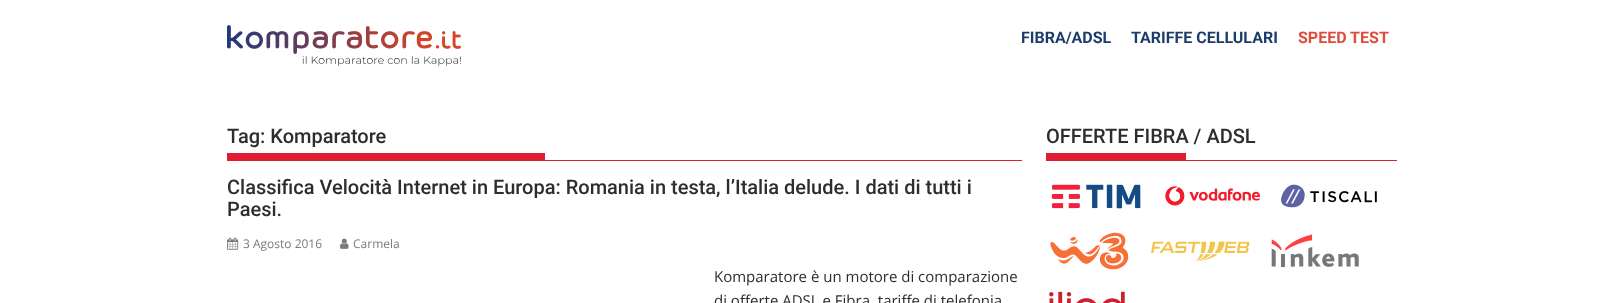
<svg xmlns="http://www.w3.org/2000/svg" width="1623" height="303">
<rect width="100%" height="100%" fill="#fff"/>
<image x="227" y="25" width="234" height="41" href="media/1.png"/>
<text x="1021" y="43" style="font-family:Roboto;font-size:16px;font-weight:bold;fill:#1c3c6b">FIBRA/ADSL</text>
<text x="1131" y="43" style="font-family:Roboto;font-size:16px;font-weight:bold;fill:#1c3c6b">TARIFFE CELLULARI</text>
<text x="1298" y="43" style="font-family:Roboto;font-size:16px;font-weight:bold;fill:#e04c3b">SPEED TEST</text>
<rect x="227" y="160" width="795" height="1" fill="#e01c32"/>
<text x="227" y="143" style="font-family:Roboto;font-size:20px;font-weight:500;fill:#2d2d2d">Tag: Komparatore</text>
<rect x="227" y="153" width="318" height="7" fill="#e01c32"/>
<text x="227" y="194" style="font-family:Roboto;font-size:20px;font-weight:500;fill:#2d2d2d">Classifica Velocità Internet in Europa: Romania in testa, l’Italia delude. I dati di tutti i</text>
<text x="227" y="216" style="font-family:Roboto;font-size:20px;font-weight:500;fill:#2d2d2d">Paesi.</text>
<image x="227" y="237" width="12" height="13" href="media/2.png"/>
<text x="243" y="248" style="font-family:Open Sans;font-size:12px;fill:#7a7a7a">3 Agosto 2016</text>
<image x="340" y="238" width="9" height="11" href="media/3.png"/>
<text x="353" y="248" style="font-family:Open Sans;font-size:12px;fill:#7a7a7a">Carmela</text>
<text x="714" y="282" style="font-family:Open Sans;font-size:15px;fill:#2d2d2d">Komparatore è un motore di comparazione</text>
<text x="714" y="306" style="font-family:Open Sans;font-size:15px;fill:#2d2d2d">di offerte ADSL e Fibra, tariffe di telefonia</text>
<rect x="1046" y="160" width="351" height="1" fill="#e01c32"/>
<text x="1046" y="143" style="font-family:Roboto;font-size:20px;font-weight:500;fill:#2d2d2d">OFFERTE FIBRA / ADSL</text>
<rect x="1046" y="153" width="140" height="7" fill="#e01c32"/>
<image x="1051" y="184" width="90" height="25" href="media/4.png"/>
<image x="1165" y="186" width="95" height="20" href="media/5.png"/>
<image x="1281" y="184" width="96" height="24" href="media/6.png"/>
<image x="1050" y="232" width="79" height="38" href="media/7.png"/>
<image x="1151" y="241" width="99" height="20" href="media/8.png"/>
<image x="1271" y="234" width="88" height="33" href="media/9.png"/>
<image x="1049" y="291" width="76" height="12" href="media/10.png"/>
</svg>
